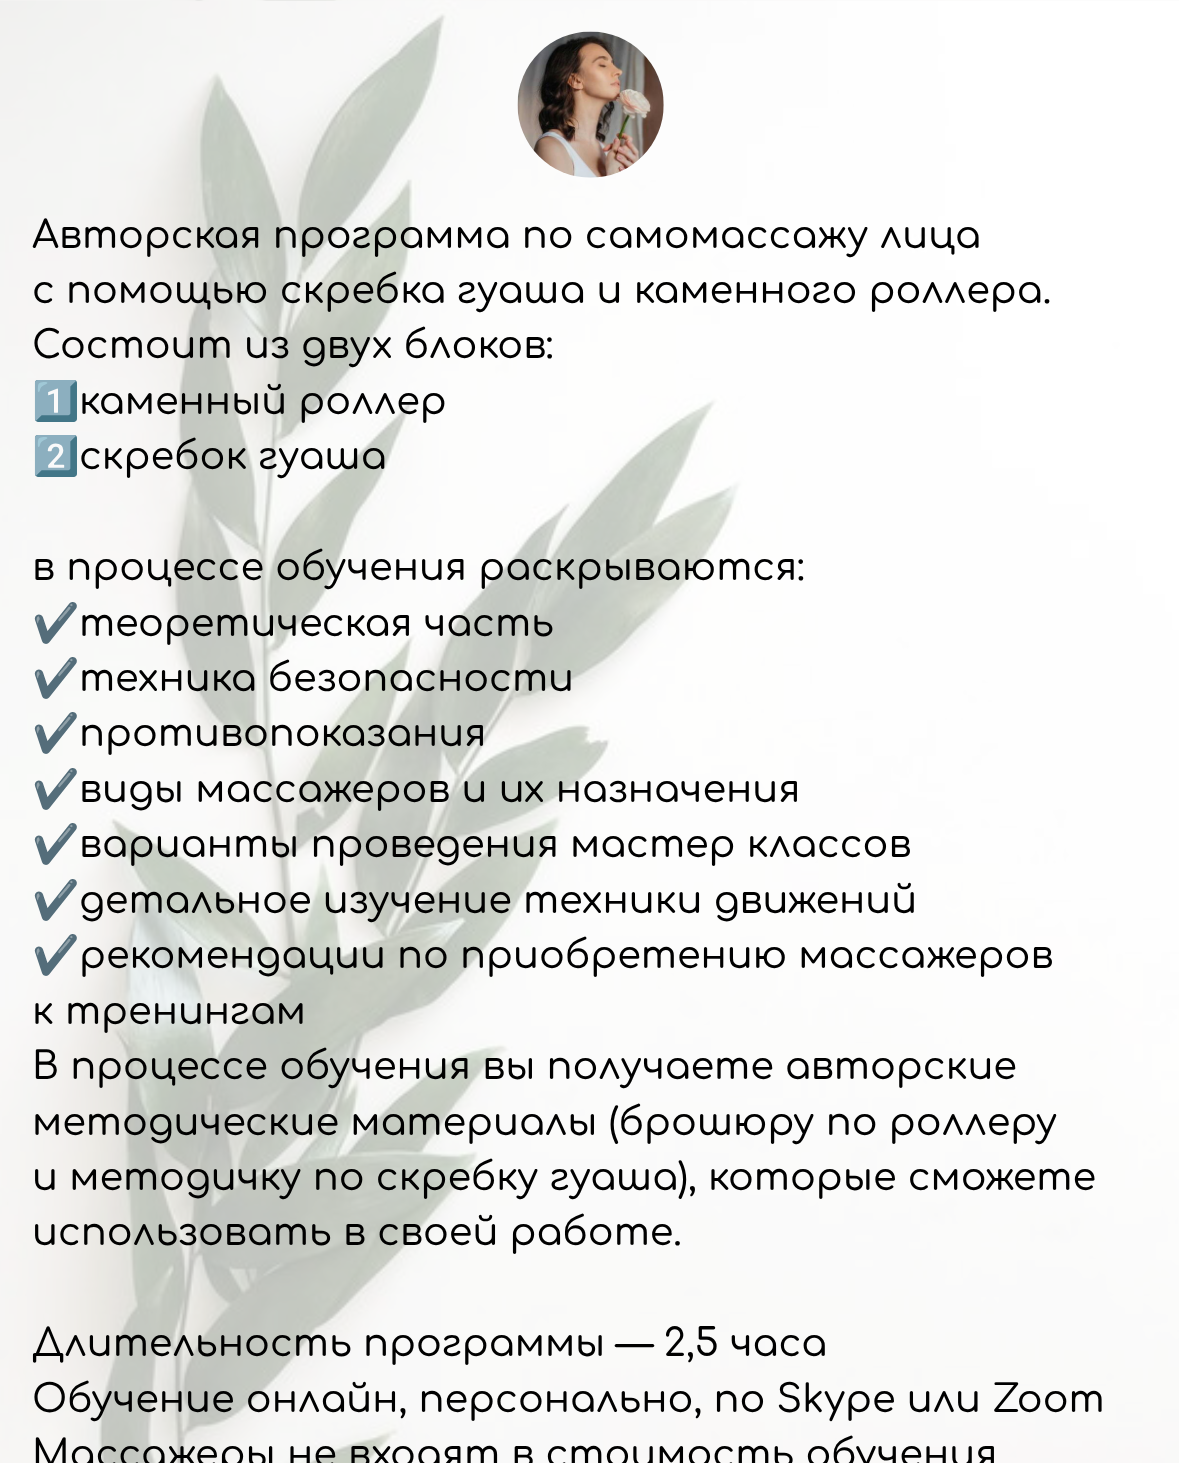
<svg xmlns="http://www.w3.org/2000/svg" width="1179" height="1463">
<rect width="100%" height="100%" fill="#fff"/>
<image x="0" y="0" width="1179" height="1463" href="media/1.png"/>
<image x="517" y="31" width="147" height="147" href="media/2.png"/>
<text x="32" y="248" style="font-family:Comfortaa;font-size:38.25px;font-weight:500;fill:#000">Авторская программа по самомассажу лица</text>
<text x="32" y="303" style="font-family:Comfortaa;font-size:38.25px;font-weight:500;fill:#000">с помощью скребка гуаша и каменного роллера.</text>
<text x="32" y="358" style="font-family:Comfortaa;font-size:38.25px;font-weight:500;fill:#000">Состоит из двух блоков:</text>
<text x="32" y="414" style="font-family:Noto Color Emoji;font-size:38.25px;fill:#000">1️⃣</text>
<text x="79" y="414" style="font-family:Comfortaa;font-size:38.25px;font-weight:500;fill:#000">каменный роллер</text>
<text x="32" y="469" style="font-family:Noto Color Emoji;font-size:38.25px;fill:#000">2️⃣</text>
<text x="79" y="469" style="font-family:Comfortaa;font-size:38.25px;font-weight:500;fill:#000">скребок гуаша</text>
<text x="32" y="580" style="font-family:Comfortaa;font-size:38.25px;font-weight:500;fill:#000">в процессе обучения раскрываются:</text>
<text x="32" y="636" style="font-family:Noto Color Emoji;font-size:38.25px;fill:#000">✔️</text>
<text x="79" y="636" style="font-family:Comfortaa;font-size:38.25px;font-weight:500;fill:#000">теоретическая часть</text>
<text x="32" y="691" style="font-family:Noto Color Emoji;font-size:38.25px;fill:#000">✔️</text>
<text x="79" y="691" style="font-family:Comfortaa;font-size:38.25px;font-weight:500;fill:#000">техника безопасности</text>
<text x="32" y="746" style="font-family:Noto Color Emoji;font-size:38.25px;fill:#000">✔️</text>
<text x="79" y="746" style="font-family:Comfortaa;font-size:38.25px;font-weight:500;fill:#000">противопоказания</text>
<text x="32" y="802" style="font-family:Noto Color Emoji;font-size:38.25px;fill:#000">✔️</text>
<text x="79" y="802" style="font-family:Comfortaa;font-size:38.25px;font-weight:500;fill:#000">виды массажеров и их назначения</text>
<text x="32" y="857" style="font-family:Noto Color Emoji;font-size:38.25px;fill:#000">✔️</text>
<text x="79" y="857" style="font-family:Comfortaa;font-size:38.25px;font-weight:500;fill:#000">варианты проведения мастер классов</text>
<text x="32" y="913" style="font-family:Noto Color Emoji;font-size:38.25px;fill:#000">✔️</text>
<text x="79" y="913" style="font-family:Comfortaa;font-size:38.25px;font-weight:500;fill:#000">детальное изучение техники движений</text>
<text x="32" y="968" style="font-family:Noto Color Emoji;font-size:38.25px;fill:#000">✔️</text>
<text x="79" y="968" style="font-family:Comfortaa;font-size:38.25px;font-weight:500;fill:#000">рекомендации по приобретению массажеров</text>
<text x="32" y="1024" style="font-family:Comfortaa;font-size:38.25px;font-weight:500;fill:#000">к тренингам</text>
<text x="32" y="1079" style="font-family:Comfortaa;font-size:38.25px;font-weight:500;fill:#000">В процессе обучения вы получаете авторские</text>
<text x="32" y="1135" style="font-family:Comfortaa;font-size:38.25px;font-weight:500;fill:#000">методические материалы (брошюру по роллеру</text>
<text x="32" y="1190" style="font-family:Comfortaa;font-size:38.25px;font-weight:500;fill:#000">и методичку по скребку гуаша), которые сможете</text>
<text x="32" y="1245" style="font-family:Comfortaa;font-size:38.25px;font-weight:500;fill:#000">использовать в своей работе.</text>
<text x="32" y="1356" style="font-family:Comfortaa;font-size:38.25px;font-weight:500;fill:#000">Длительность программы — 2,5 часа</text>
<text x="32" y="1412" style="font-family:Comfortaa;font-size:38.25px;font-weight:500;fill:#000">Обучение онлайн, персонально, по Skype или Zoom</text>
<text x="32" y="1467" style="font-family:Comfortaa;font-size:38.25px;font-weight:500;fill:#000">Массажеры не входят в стоимость обучения</text>
</svg>
